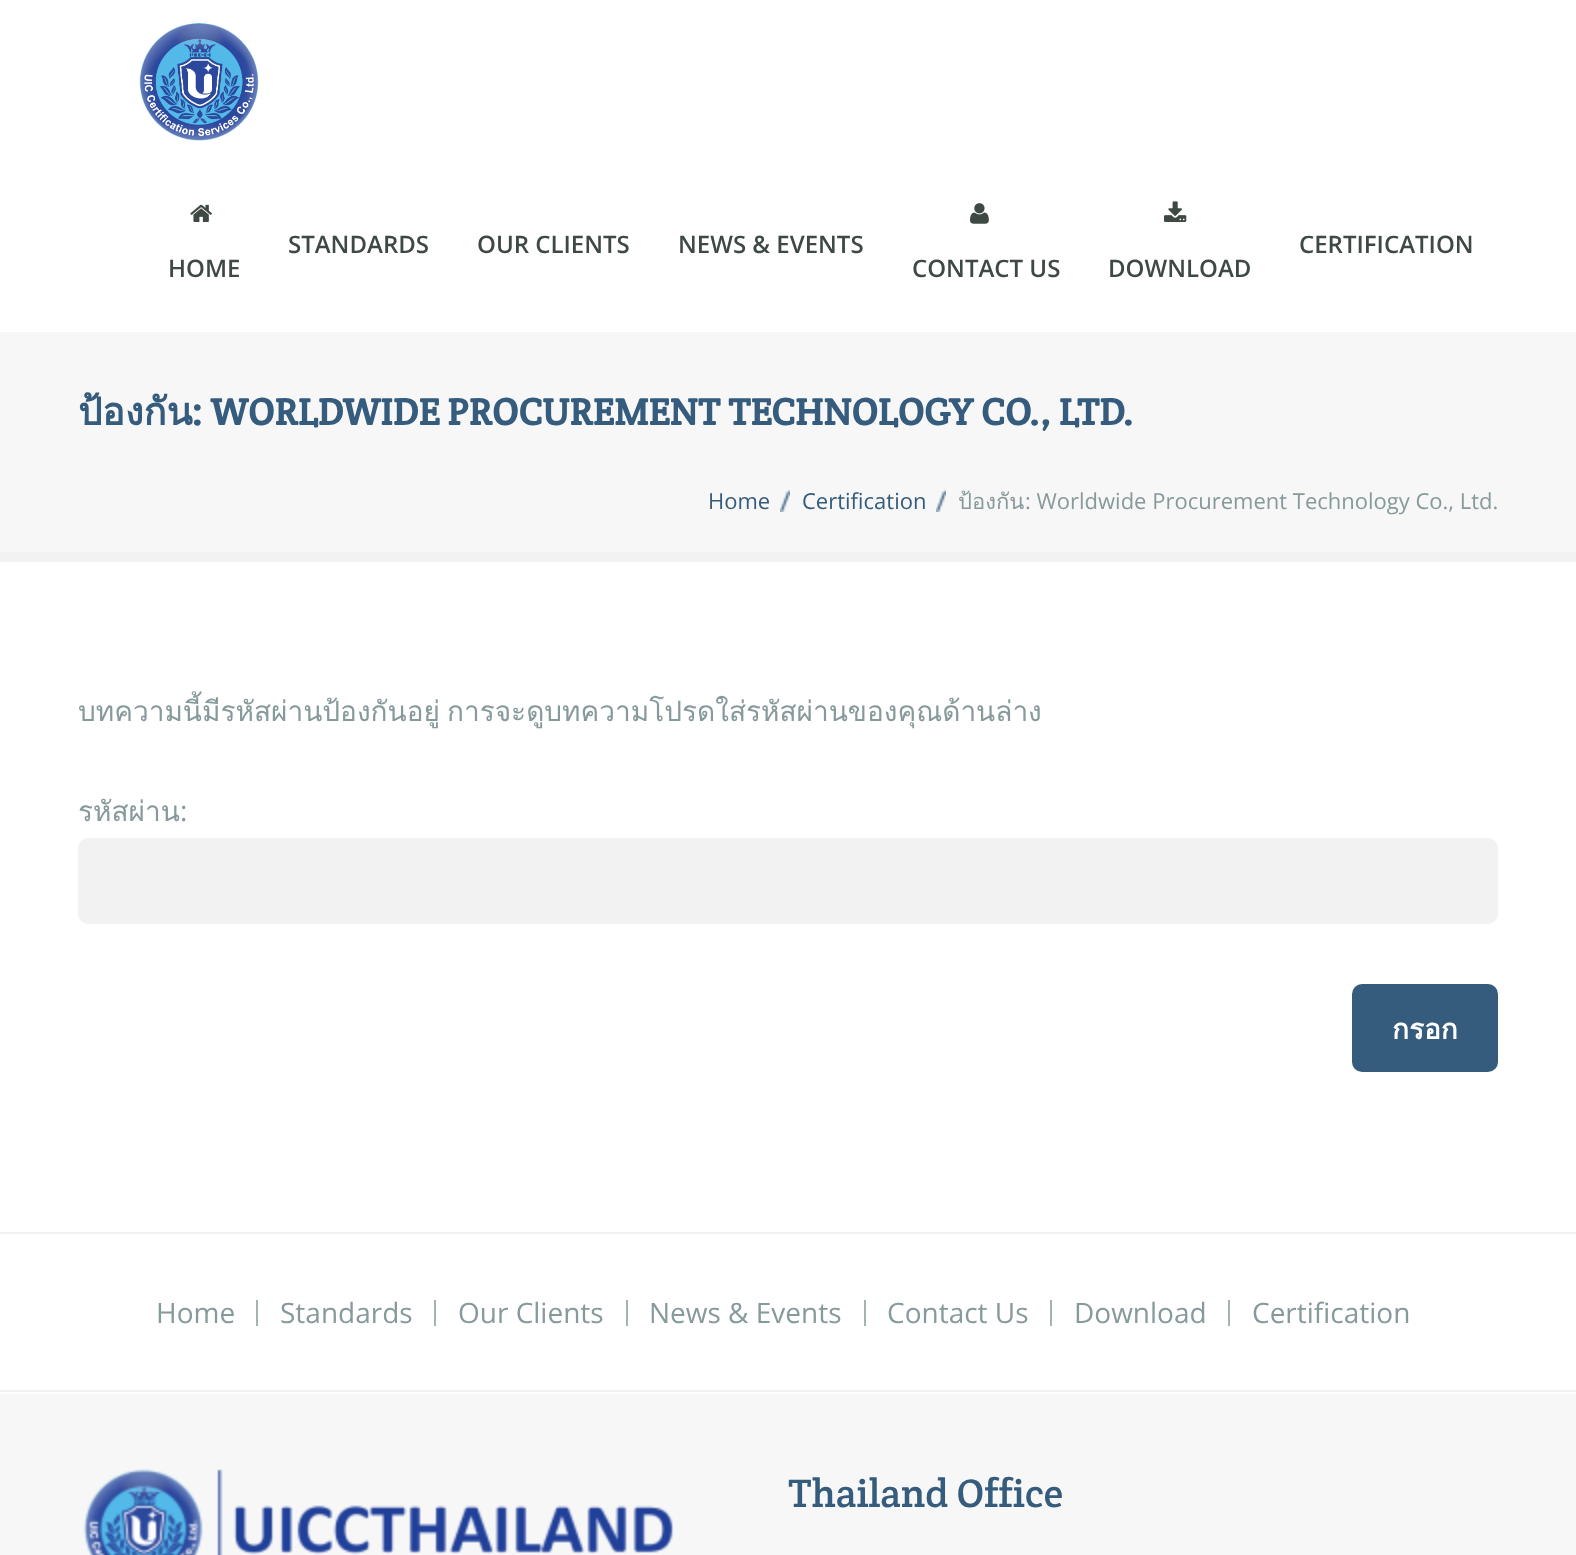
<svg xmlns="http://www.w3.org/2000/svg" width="1576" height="1555">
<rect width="100%" height="100%" fill="#fff"/>
<image x="139" y="23" width="120" height="118" href="media/1.png"/>
<text x="288" y="253" style="font-family:Open Sans;font-size:24px;font-weight:600;fill:#3f4944">STANDARDS</text>
<text x="477" y="253" style="font-family:Open Sans;font-size:24px;font-weight:600;fill:#3f4944">OUR CLIENTS</text>
<text x="678" y="253" style="font-family:Open Sans;font-size:24px;font-weight:600;fill:#3f4944">NEWS &amp; EVENTS</text>
<text x="1299" y="253" style="font-family:Open Sans;font-size:24px;font-weight:600;fill:#3f4944">CERTIFICATION</text>
<image x="190" y="204" width="22" height="18" href="media/2.png"/>
<text x="168" y="277" style="font-family:Open Sans;font-size:24px;font-weight:600;fill:#3f4944">HOME</text>
<image x="970" y="203" width="19" height="21" href="media/3.png"/>
<text x="912" y="277" style="font-family:Open Sans;font-size:24px;font-weight:600;fill:#3f4944">CONTACT US</text>
<image x="1164" y="201" width="23" height="21" href="media/4.png"/>
<text x="1108" y="277" style="font-family:Open Sans;font-size:24px;font-weight:600;fill:#3f4944">DOWNLOAD</text>
<rect y="332" width="1576" height="220" fill="#f7f7f7"/>
<rect y="552" width="1576" height="10" fill="#f2f2f2"/>
<text x="78" y="425" style="font-family:Loma;font-size:38px;font-weight:bold;fill:#355c7d">ป้องกัน</text>
<text x="192" y="425" style="font-family:Crete Round;font-size:38px;font-weight:bold;fill:#355c7d">: WORLDWIDE PROCUREMENT TECHNOLOGY CO., LTD.</text>
<text x="708" y="509" style="font-family:Open Sans;font-size:22px;fill:#355c7d">Home</text>
<image x="780" y="490" width="10" height="22" href="media/5.png"/>
<text x="802" y="509" style="font-family:Open Sans;font-size:22px;fill:#355c7d">Certification</text>
<image x="936" y="490" width="10" height="22" href="media/5.png"/>
<text x="958" y="509" style="font-family:Loma;font-size:22px;fill:#86999b">ป้องกัน</text>
<text x="1025" y="509" style="font-family:Open Sans;font-size:22px;fill:#86999b">: Worldwide Procurement Technology Co., Ltd.</text>
<text x="78" y="721" style="font-family:Loma;font-size:28px;fill:#86999b">บทความนี้มีรหัสผ่านป้องกันอยู่</text>
<text x="447" y="721" style="font-family:Loma;font-size:28px;fill:#86999b">การจะดูบทความโปรดใส่รหัสผ่านของคุณด้านล่าง</text>
<text x="78" y="821" style="font-family:Loma;font-size:28px;fill:#86999b">รหัสผ่าน</text>
<text x="180" y="821" style="font-family:Open Sans;font-size:28px;fill:#86999b">:</text>
<rect x="78" y="838" width="1420" height="86" rx="10" fill="#f2f2f2"/>
<rect x="1352" y="984" width="146" height="88" rx="10" fill="#355c7d"/>
<text x="1392" y="1039" style="font-family:Loma;font-size:28px;font-weight:bold;fill:#fff">กรอก</text>
<rect y="1394" width="1576" height="161" fill="#f7f7f7"/>
<rect y="1232" width="1576" height="2" fill="#f2f1f2"/>
<rect y="1390" width="1576" height="2" fill="#f2f1f2"/>
<rect x="256" y="1300" width="2" height="26" fill="#a5b3b4"/>
<text x="156" y="1323" style="font-family:Open Sans;font-size:28px;fill:#86999b">Home</text>
<rect x="434" y="1300" width="2" height="26" fill="#a5b3b4"/>
<text x="280" y="1323" style="font-family:Open Sans;font-size:28px;fill:#86999b">Standards</text>
<rect x="626" y="1300" width="2" height="26" fill="#a5b3b4"/>
<text x="458" y="1323" style="font-family:Open Sans;font-size:28px;fill:#86999b">Our Clients</text>
<rect x="864" y="1300" width="2" height="26" fill="#a5b3b4"/>
<text x="649" y="1323" style="font-family:Open Sans;font-size:28px;fill:#86999b">News &amp; Events</text>
<rect x="1050" y="1300" width="2" height="26" fill="#a5b3b4"/>
<text x="887" y="1323" style="font-family:Open Sans;font-size:28px;fill:#86999b">Contact Us</text>
<rect x="1228" y="1300" width="2" height="26" fill="#a5b3b4"/>
<text x="1074" y="1323" style="font-family:Open Sans;font-size:28px;fill:#86999b">Download</text>
<text x="1252" y="1323" style="font-family:Open Sans;font-size:28px;fill:#86999b">Certification</text>
<image x="83" y="1469" width="591" height="86" href="media/6.png"/>
<text x="788" y="1507" style="font-family:Crete Round;font-size:40px;fill:#355c7d">Thailand Office</text>
</svg>
